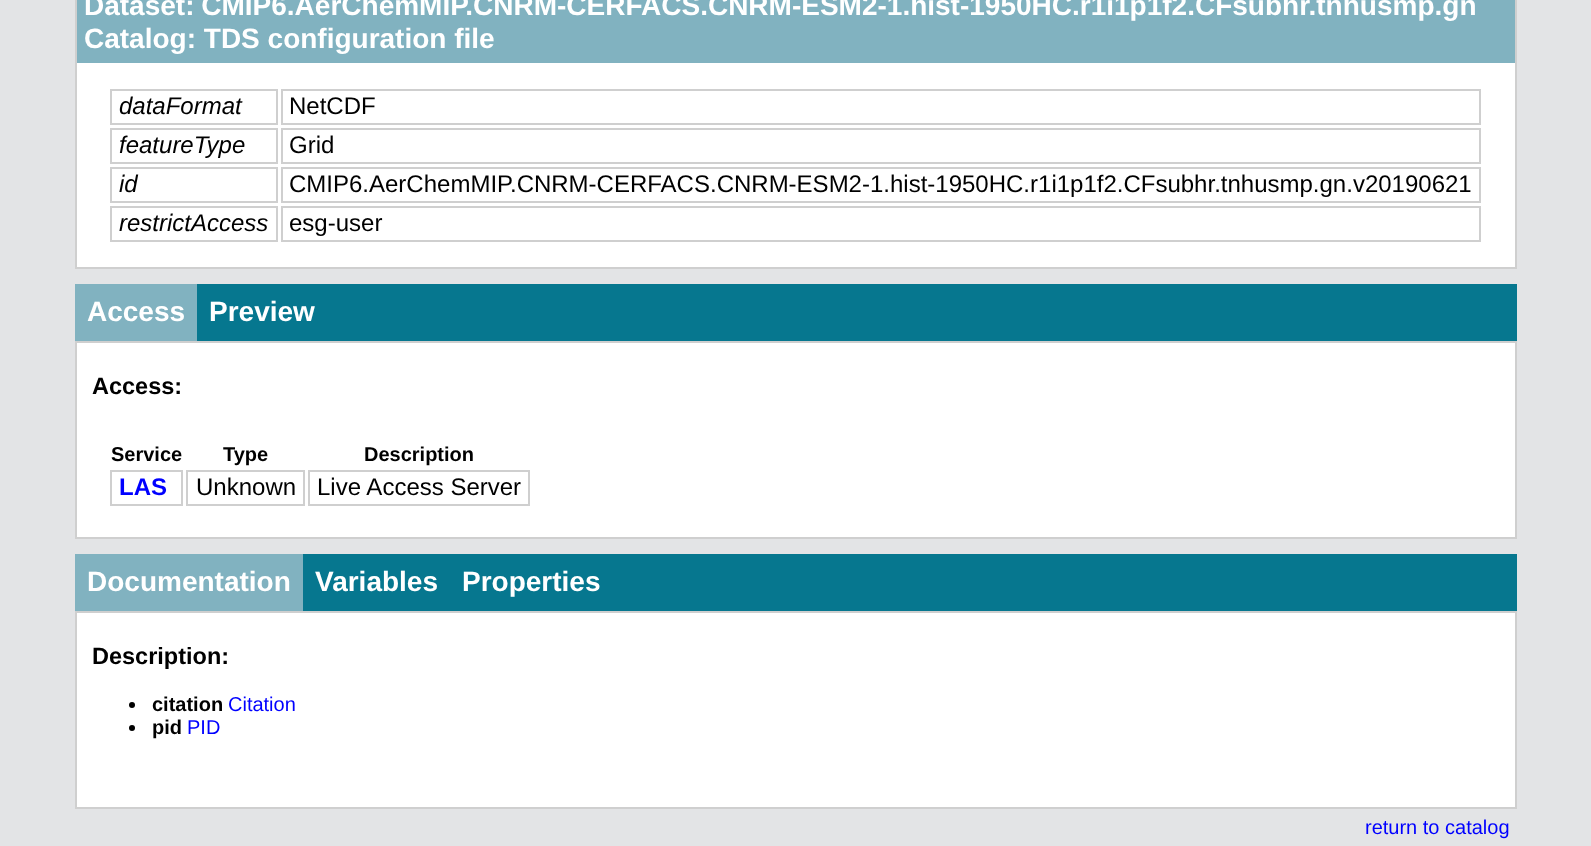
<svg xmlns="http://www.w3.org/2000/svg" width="1591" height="846">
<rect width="100%" height="100%" fill="#e3e4e6"/>
<rect x="77" y="63" width="1438" height="204" fill="#fff"/>
<rect x="76" y="-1" width="1440" height="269" fill="none" stroke="#cfcfcf" stroke-width="2"/>
<rect x="77" width="1438" height="63" fill="#81b2c0"/>
<text x="84" y="15" word-spacing="-1" style="font-family:Liberation Sans;font-size:28px;font-weight:bold;fill:#fff">Dataset: CMIP6.AerChemMIP.CNRM-CERFACS.CNRM-ESM2-1.hist-1950HC.r1i1p1f2.CFsubhr.tnhusmp.gn</text>
<text x="84" y="48" style="font-family:Liberation Sans;font-size:28px;font-weight:bold;fill:#fff">Catalog: TDS configuration file</text>
<rect x="111" y="90" width="166" height="34" fill="none" stroke="#cfcfcf" stroke-width="2"/>
<text x="119" y="114" style="font-family:Liberation Sans;font-size:24px;font-style:italic;fill:#000">dataFormat</text>
<rect x="282" y="90" width="1198" height="34" fill="none" stroke="#cfcfcf" stroke-width="2"/>
<text x="289" y="114" style="font-family:Liberation Sans;font-size:24px;fill:#000">NetCDF</text>
<rect x="111" y="129" width="166" height="34" fill="none" stroke="#cfcfcf" stroke-width="2"/>
<text x="119" y="153" style="font-family:Liberation Sans;font-size:24px;font-style:italic;fill:#000">featureType</text>
<rect x="282" y="129" width="1198" height="34" fill="none" stroke="#cfcfcf" stroke-width="2"/>
<text x="289" y="153" style="font-family:Liberation Sans;font-size:24px;fill:#000">Grid</text>
<rect x="111" y="168" width="166" height="34" fill="none" stroke="#cfcfcf" stroke-width="2"/>
<text x="119" y="192" style="font-family:Liberation Sans;font-size:24px;font-style:italic;fill:#000">id</text>
<rect x="282" y="168" width="1198" height="34" fill="none" stroke="#cfcfcf" stroke-width="2"/>
<text x="289" y="192" style="font-family:Liberation Sans;font-size:24px;fill:#000">CMIP6.AerChemMIP.CNRM-CERFACS.CNRM-ESM2-1.hist-1950HC.r1i1p1f2.CFsubhr.tnhusmp.gn.v20190621</text>
<rect x="111" y="207" width="166" height="34" fill="none" stroke="#cfcfcf" stroke-width="2"/>
<text x="119" y="231" style="font-family:Liberation Sans;font-size:24px;font-style:italic;fill:#000">restrictAccess</text>
<rect x="282" y="207" width="1198" height="34" fill="none" stroke="#cfcfcf" stroke-width="2"/>
<text x="289" y="231" style="font-family:Liberation Sans;font-size:24px;fill:#000">esg-user</text>
<rect x="197" y="284" width="1320" height="57" fill="#06778f"/>
<rect x="75" y="284" width="122" height="57" fill="#81b2c0"/>
<text x="87" y="321" style="font-family:Liberation Sans;font-size:28px;font-weight:bold;fill:#fff">Access</text>
<text x="209" y="321" style="font-family:Liberation Sans;font-size:28px;font-weight:bold;fill:#fff">Preview</text>
<rect x="76" y="342" width="1440" height="196" fill="#fff" stroke="#cfcfcf" stroke-width="2"/>
<text x="92" y="394" style="font-family:Liberation Sans;font-size:23.5px;font-weight:bold;fill:#000">Access:</text>
<text x="111" y="461" style="font-family:Liberation Sans;font-size:20px;font-weight:bold;fill:#000">Service</text>
<text x="223" y="461" style="font-family:Liberation Sans;font-size:20px;font-weight:bold;fill:#000">Type</text>
<text x="364" y="461" style="font-family:Liberation Sans;font-size:20px;font-weight:bold;fill:#000">Description</text>
<rect x="111" y="471" width="71" height="34" fill="none" stroke="#cfcfcf" stroke-width="2"/>
<text x="119" y="495" style="font-family:Liberation Sans;font-size:24px;font-weight:bold;fill:#00f">LAS</text>
<rect x="187" y="471" width="117" height="34" fill="none" stroke="#cfcfcf" stroke-width="2"/>
<text x="196" y="495" style="font-family:Liberation Sans;font-size:24px;fill:#000">Unknown</text>
<rect x="309" y="471" width="220" height="34" fill="none" stroke="#cfcfcf" stroke-width="2"/>
<text x="317" y="495" style="font-family:Liberation Sans;font-size:24px;fill:#000">Live Access Server</text>
<rect x="303" y="554" width="1214" height="57" fill="#06778f"/>
<rect x="75" y="554" width="228" height="57" fill="#81b2c0"/>
<text x="87" y="591" style="font-family:Liberation Sans;font-size:28px;font-weight:bold;fill:#fff">Documentation</text>
<text x="315" y="591" style="font-family:Liberation Sans;font-size:28px;font-weight:bold;fill:#fff">Variables</text>
<text x="462" y="591" style="font-family:Liberation Sans;font-size:28px;font-weight:bold;fill:#fff">Properties</text>
<rect x="76" y="612" width="1440" height="196" fill="#fff" stroke="#cfcfcf" stroke-width="2"/>
<text x="92" y="664" style="font-family:Liberation Sans;font-size:23.5px;font-weight:bold;fill:#000">Description:</text>
<circle cx="132" cy="705" r="3" fill="#000"/>
<text x="152" y="711" style="font-family:Liberation Sans;font-size:20px;font-weight:bold;fill:#000">citation</text>
<text x="228" y="711" style="font-family:Liberation Sans;font-size:20px;fill:#00f">Citation</text>
<circle cx="132" cy="728" r="3" fill="#000"/>
<text x="152" y="734" style="font-family:Liberation Sans;font-size:20px;font-weight:bold;fill:#000">pid</text>
<text x="187" y="734" style="font-family:Liberation Sans;font-size:20px;fill:#00f">PID</text>
<text x="1365" y="834" style="font-family:Liberation Sans;font-size:20px;fill:#00f">return to catalog</text>
</svg>
